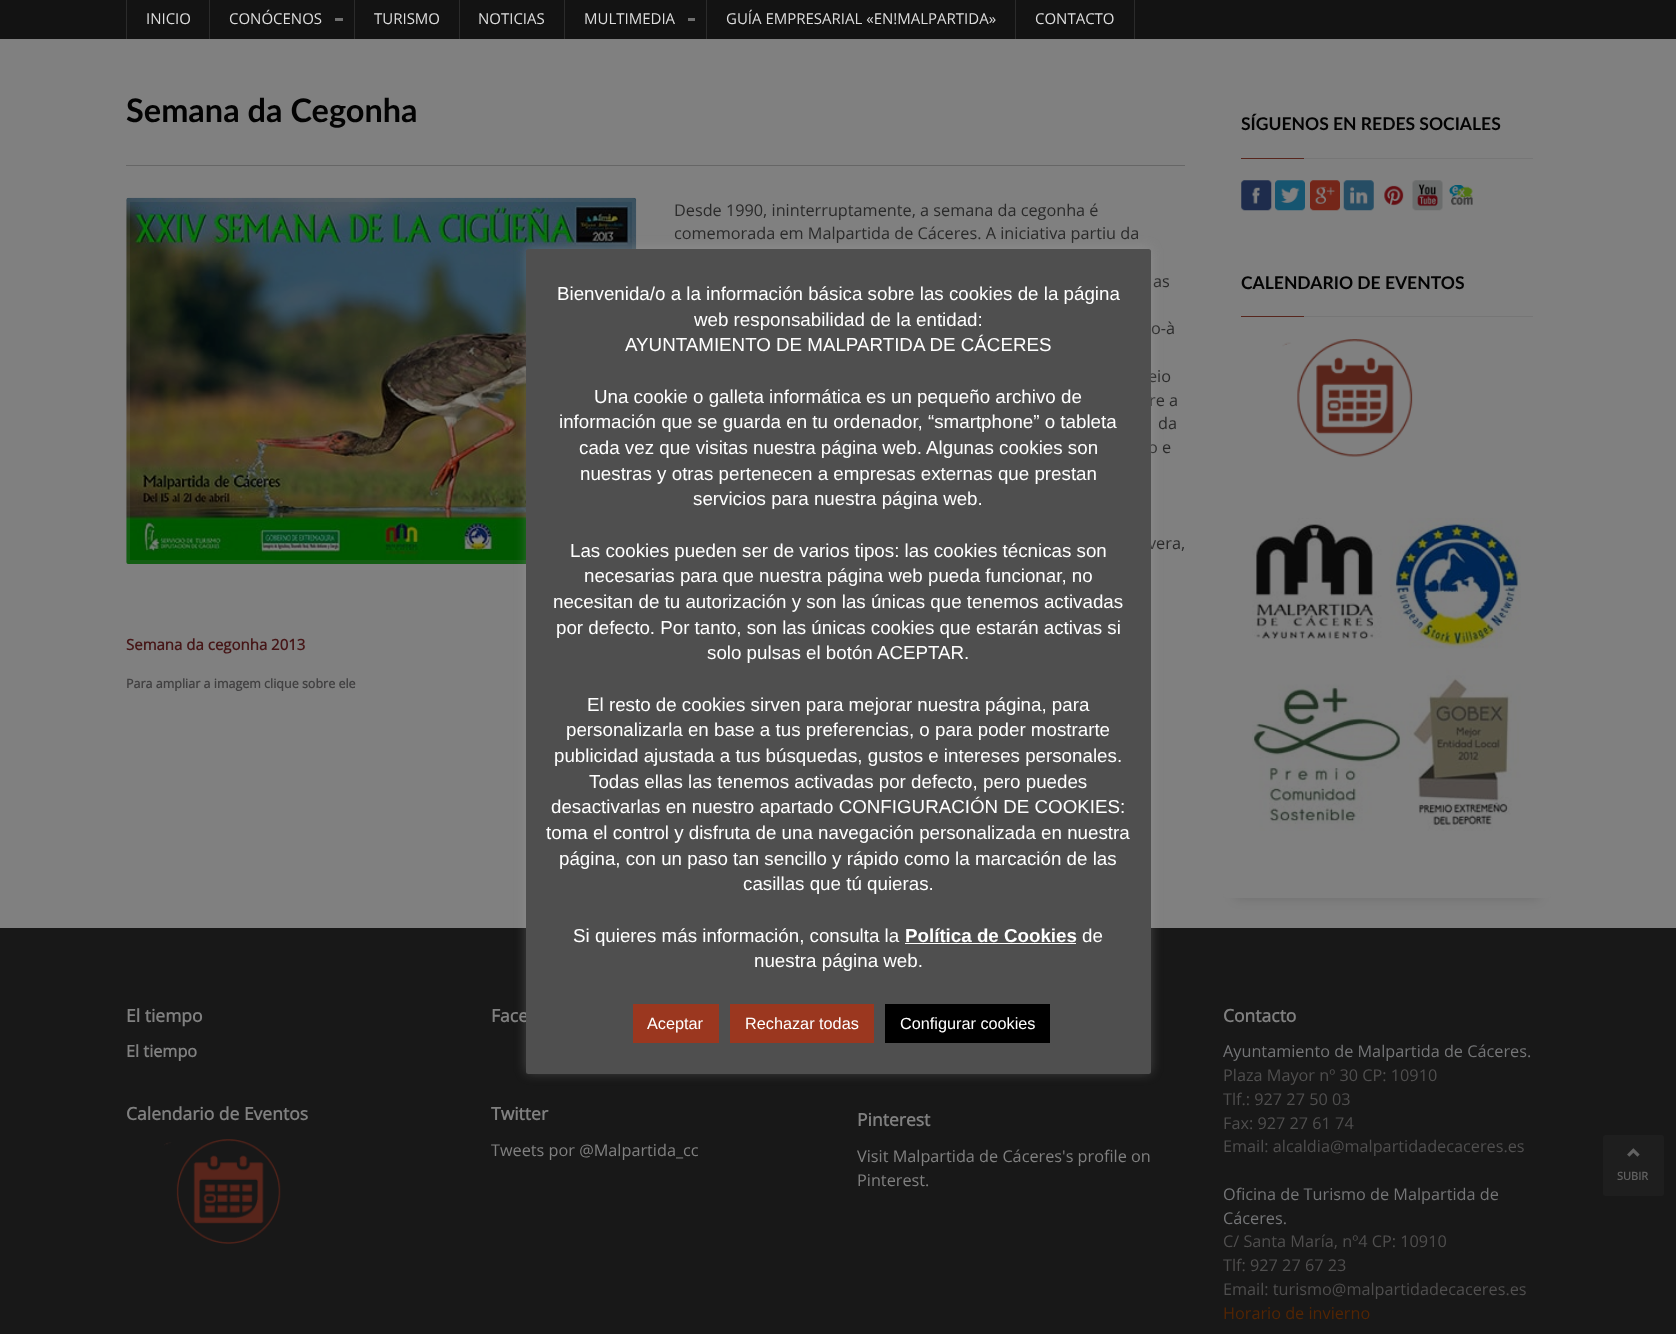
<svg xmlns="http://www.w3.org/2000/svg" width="1676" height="1334">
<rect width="100%" height="100%" fill="#808080"/>
<rect width="1676" height="39" fill="#131313"/>
<rect x="126" width="1" height="39" fill="#2b2b2b"/>
<text x="146" y="24" style="font-family:Open Sans;font-size:15px;fill:#ddd">INICIO</text>
<rect x="209" width="1" height="39" fill="#2b2b2b"/>
<text x="229" y="24" style="font-family:Open Sans;font-size:15px;fill:#ddd">CONÓCENOS</text>
<rect x="335" y="18" width="8" height="3" fill="#707070"/>
<rect x="354" width="1" height="39" fill="#2b2b2b"/>
<text x="374" y="24" style="font-family:Open Sans;font-size:15px;fill:#ddd">TURISMO</text>
<rect x="459" width="1" height="39" fill="#2b2b2b"/>
<text x="478" y="24" style="font-family:Open Sans;font-size:15px;fill:#ddd">NOTICIAS</text>
<rect x="564" width="1" height="39" fill="#2b2b2b"/>
<text x="584" y="24" style="font-family:Open Sans;font-size:15px;fill:#ddd">MULTIMEDIA</text>
<rect x="688" y="18" width="7" height="3" fill="#707070"/>
<rect x="706" width="1" height="39" fill="#2b2b2b"/>
<text x="726" y="24" style="font-family:Open Sans;font-size:15px;fill:#ddd">GUÍA EMPRESARIAL «EN!MALPARTIDA»</text>
<rect x="1134" width="1" height="39" fill="#2b2b2b"/>
<rect x="1015" width="1" height="39" fill="#2b2b2b"/>
<text x="1035" y="24" style="font-family:Open Sans;font-size:15px;fill:#ddd">CONTACTO</text>
<rect x="126" y="165" width="1059" height="1" fill="#666"/>
<text x="126" y="122" style="font-family:Lato;font-size:32.5px;font-weight:bold;fill:#030303">Semana da Cegonha</text>
<text x="674" y="216" style="font-family:Open Sans;font-size:16.25px;fill:#2a2a2a">Desde 1990, ininterruptamente, a semana da cegonha é</text>
<text x="674" y="239" style="font-family:Open Sans;font-size:16.25px;fill:#2a2a2a">comemorada em Malpartida de Cáceres. A iniciativa partiu da</text>
<text x="1153" y="287" style="font-family:Open Sans;font-size:16.25px;fill:#2a2a2a">as</text>
<text x="1151" y="334" style="font-family:Open Sans;font-size:16.25px;fill:#2a2a2a">o-à</text>
<text x="1148" y="382" style="font-family:Open Sans;font-size:16.25px;fill:#2a2a2a">eio</text>
<text x="1149" y="406" style="font-family:Open Sans;font-size:16.25px;fill:#2a2a2a">re a</text>
<text x="1158" y="429" style="font-family:Open Sans;font-size:16.25px;fill:#2a2a2a">da</text>
<text x="1148" y="453" style="font-family:Open Sans;font-size:16.25px;fill:#2a2a2a">o e</text>
<text x="1148" y="549" style="font-family:Open Sans;font-size:16.25px;fill:#2a2a2a">vera,</text>
<image x="126" y="197" width="511" height="367" href="media/1.png"/>
<rect x="128" y="200" width="506" height="362" rx="2" fill="none" stroke="#80808026" stroke-width="4"/>
<text x="126" y="650" style="font-family:Open Sans;font-size:15px;font-weight:bold;fill:#461617">Semana da cegonha 2013</text>
<text x="126" y="688" style="font-family:Open Sans;font-size:12.5px;font-weight:bold;fill:#414041">Para ampliar a imagem clique sobre ele</text>
<rect x="1235" y="99" width="304" height="799" fill="#00000026" filter="blur(6px)"/>
<rect x="1223" y="74" width="328" height="824" rx="4" fill="#808080"/>
<text x="1241" y="130" style="font-family:Lato;font-size:17.5px;font-weight:bold;fill:#030303">SÍGUENOS EN REDES SOCIALES</text>
<rect x="1241" y="158" width="63" height="1" fill="#57261d"/>
<rect x="1304" y="158" width="229" height="1" fill="#767676"/>
<image x="1241" y="180" width="31" height="31" href="media/2.png"/>
<image x="1275" y="180" width="30" height="31" href="media/3.png"/>
<image x="1310" y="180" width="30" height="31" href="media/4.png"/>
<image x="1343" y="180" width="31" height="31" href="media/5.png"/>
<image x="1384" y="185" width="20" height="21" href="media/6.png"/>
<image x="1412" y="180" width="31" height="31" href="media/7.png"/>
<image x="1449" y="185" width="24" height="20" href="media/8.png"/>
<text x="1241" y="289" style="font-family:Lato;font-size:17.5px;font-weight:bold;fill:#030303">CALENDARIO DE EVENTOS</text>
<rect x="1241" y="316" width="63" height="1" fill="#57261d"/>
<rect x="1304" y="316" width="229" height="1" fill="#767676"/>
<image x="1282" y="339" width="131" height="118" href="media/9.png"/>
<image x="1252" y="518" width="269" height="313" href="media/10.png"/>
<rect y="928" width="1676" height="406" fill="#181818"/>
<text x="126" y="1022" style="font-family:Open Sans;font-size:17.5px;font-weight:bold;fill:#808080">El tiempo</text>
<text x="126" y="1057" style="font-family:Open Sans;font-size:16.25px;font-weight:bold;fill:#808080">El tiempo</text>
<text x="126" y="1120" style="font-family:Open Sans;font-size:17.5px;font-weight:bold;fill:#808080">Calendario de Eventos</text>
<image x="164" y="1139" width="117" height="105" href="media/11.png"/>
<text x="491" y="1022" style="font-family:Open Sans;font-size:17.5px;font-weight:bold;fill:#808080">Face</text>
<text x="491" y="1120" style="font-family:Open Sans;font-size:17.5px;font-weight:bold;fill:#808080">Twitter</text>
<text x="491" y="1156" style="font-family:Open Sans;font-size:16.25px;fill:#808080">Tweets por @Malpartida_cc</text>
<text x="857" y="1126" style="font-family:Open Sans;font-size:17.5px;font-weight:bold;fill:#808080">Pinterest</text>
<text x="857" y="1162" style="font-family:Open Sans;font-size:16.25px;fill:#808080">Visit Malpartida de Cáceres's profile on</text>
<text x="857" y="1186" style="font-family:Open Sans;font-size:16.25px;fill:#808080">Pinterest.</text>
<text x="1223" y="1022" style="font-family:Open Sans;font-size:17.5px;font-weight:bold;fill:#808080">Contacto</text>
<text x="1223" y="1057" style="font-family:Open Sans;font-size:16.25px;fill:#747577">Ayuntamiento de Malpartida de Cáceres.</text>
<text x="1223" y="1081" style="font-family:Open Sans;font-size:16.25px;fill:#4f4e4e">Plaza Mayor nº 30 CP: 10910</text>
<text x="1223" y="1105" style="font-family:Open Sans;font-size:16.25px;fill:#4f4e4e">Tlf.: 927 27 50 03</text>
<text x="1223" y="1129" style="font-family:Open Sans;font-size:16.25px;fill:#4f4e4e">Fax: 927 27 61 74</text>
<text x="1223" y="1152" style="font-family:Open Sans;font-size:16.25px;fill:#4f4e4e">Email: alcaldia@malpartidadecaceres.es</text>
<text x="1223" y="1200" style="font-family:Open Sans;font-size:16.25px;fill:#747577">Oficina de Turismo de Malpartida de</text>
<text x="1223" y="1224" style="font-family:Open Sans;font-size:16.25px;fill:#747577">Cáceres.</text>
<text x="1223" y="1247" style="font-family:Open Sans;font-size:16.25px;fill:#4f4e4e">C/ Santa María, nº4 CP: 10910</text>
<text x="1223" y="1271" style="font-family:Open Sans;font-size:16.25px;fill:#4f4e4e">Tlf: 927 27 67 23</text>
<text x="1223" y="1295" style="font-family:Open Sans;font-size:16.25px;fill:#4f4e4e">Email: turismo@malpartidadecaceres.es</text>
<text x="1223" y="1319" style="font-family:Open Sans;font-size:16.25px;fill:#532503">Horario de invierno</text>
<rect x="526" y="248" width="625" height="825" rx="2.5" fill="#acabab4d" filter="blur(6px)"/>
<rect x="526" y="249" width="625" height="825" rx="2.5" fill="#4f4f4f"/>
<text x="557" y="300" style="font-family:Liberation Sans;font-size:18.75px;fill:#fff">Bienvenida/o a la información básica sobre las cookies de la página</text>
<text x="694" y="326" style="font-family:Liberation Sans;font-size:18.75px;fill:#fff">web responsabilidad de la entidad:</text>
<text x="625" y="351" style="font-family:Liberation Sans;font-size:18.75px;fill:#fff">AYUNTAMIENTO DE MALPARTIDA DE CÁCERES</text>
<text x="594" y="403" style="font-family:Liberation Sans;font-size:18.75px;fill:#fff">Una cookie o galleta informática es un pequeño archivo de</text>
<text x="559" y="428" style="font-family:Liberation Sans;font-size:18.75px;fill:#fff">información que se guarda en tu ordenador, “smartphone” o tableta</text>
<text x="579" y="454" style="font-family:Liberation Sans;font-size:18.75px;fill:#fff">cada vez que visitas nuestra página web. Algunas cookies son</text>
<text x="580" y="480" style="font-family:Liberation Sans;font-size:18.75px;fill:#fff">nuestras y otras pertenecen a empresas externas que prestan</text>
<text x="693" y="505" style="font-family:Liberation Sans;font-size:18.75px;fill:#fff">servicios para nuestra página web.</text>
<text x="570" y="557" style="font-family:Liberation Sans;font-size:18.75px;fill:#fff">Las cookies pueden ser de varios tipos: las cookies técnicas son</text>
<text x="584" y="582" style="font-family:Liberation Sans;font-size:18.75px;fill:#fff">necesarias para que nuestra página web pueda funcionar, no</text>
<text x="553" y="608" style="font-family:Liberation Sans;font-size:18.75px;fill:#fff">necesitan de tu autorización y son las únicas que tenemos activadas</text>
<text x="556" y="634" style="font-family:Liberation Sans;font-size:18.75px;fill:#fff">por defecto. Por tanto, son las únicas cookies que estarán activas si</text>
<text x="707" y="659" style="font-family:Liberation Sans;font-size:18.75px;fill:#fff">solo pulsas el botón ACEPTAR.</text>
<text x="587" y="711" style="font-family:Liberation Sans;font-size:18.75px;fill:#fff">El resto de cookies sirven para mejorar nuestra página, para</text>
<text x="566" y="736" style="font-family:Liberation Sans;font-size:18.75px;fill:#fff">personalizarla en base a tus preferencias, o para poder mostrarte</text>
<text x="554" y="762" style="font-family:Liberation Sans;font-size:18.75px;fill:#fff">publicidad ajustada a tus búsquedas, gustos e intereses personales.</text>
<text x="589" y="788" style="font-family:Liberation Sans;font-size:18.75px;fill:#fff">Todas ellas las tenemos activadas por defecto, pero puedes</text>
<text x="551" y="813" style="font-family:Liberation Sans;font-size:18.75px;fill:#fff">desactivarlas en nuestro apartado CONFIGURACIÓN DE COOKIES:</text>
<text x="546" y="839" style="font-family:Liberation Sans;font-size:18.75px;fill:#fff">toma el control y disfruta de una navegación personalizada en nuestra</text>
<text x="559" y="865" style="font-family:Liberation Sans;font-size:18.75px;fill:#fff">página, con un paso tan sencillo y rápido como la marcación de las</text>
<text x="743" y="890" style="font-family:Liberation Sans;font-size:18.75px;fill:#fff">casillas que tú quieras.</text>
<text x="573" y="942" style="font-family:Liberation Sans;font-size:18.75px;fill:#fff">Si quieres más información, consulta la</text>
<text x="905" y="942" style="font-family:Liberation Sans;font-size:18.75px;font-weight:bold;fill:#fff">Política de Cookies</text>
<rect x="905" y="943" width="171" height="1" fill="#fff"/>
<text x="1082" y="942" style="font-family:Liberation Sans;font-size:18.75px;fill:#fff">de</text>
<text x="754" y="967" style="font-family:Liberation Sans;font-size:18.75px;fill:#fff">nuestra página web.</text>
<rect x="633" y="1004" width="86" height="39" fill="#9b371f"/>
<text x="647" y="1029" style="font-family:Liberation Sans;font-size:16.25px;fill:#fff">Aceptar</text>
<rect x="730" y="1004" width="144" height="39" fill="#9b371f"/>
<text x="745" y="1029" style="font-family:Liberation Sans;font-size:16.25px;fill:#fff">Rechazar todas</text>
<rect x="885" y="1004" width="165" height="39" fill="#000"/>
<text x="900" y="1029" style="font-family:Liberation Sans;font-size:16.25px;fill:#fff">Configurar cookies</text>
<rect x="1603" y="1135" width="61" height="61" rx="2.5" fill="#1e1e1e"/>
<image x="1627" y="1148" width="13" height="9" href="media/12.png"/>
<text x="1617" y="1180" style="font-family:Open Sans;font-size:11px;font-weight:bold;fill:#616161">SUBIR</text>
</svg>
